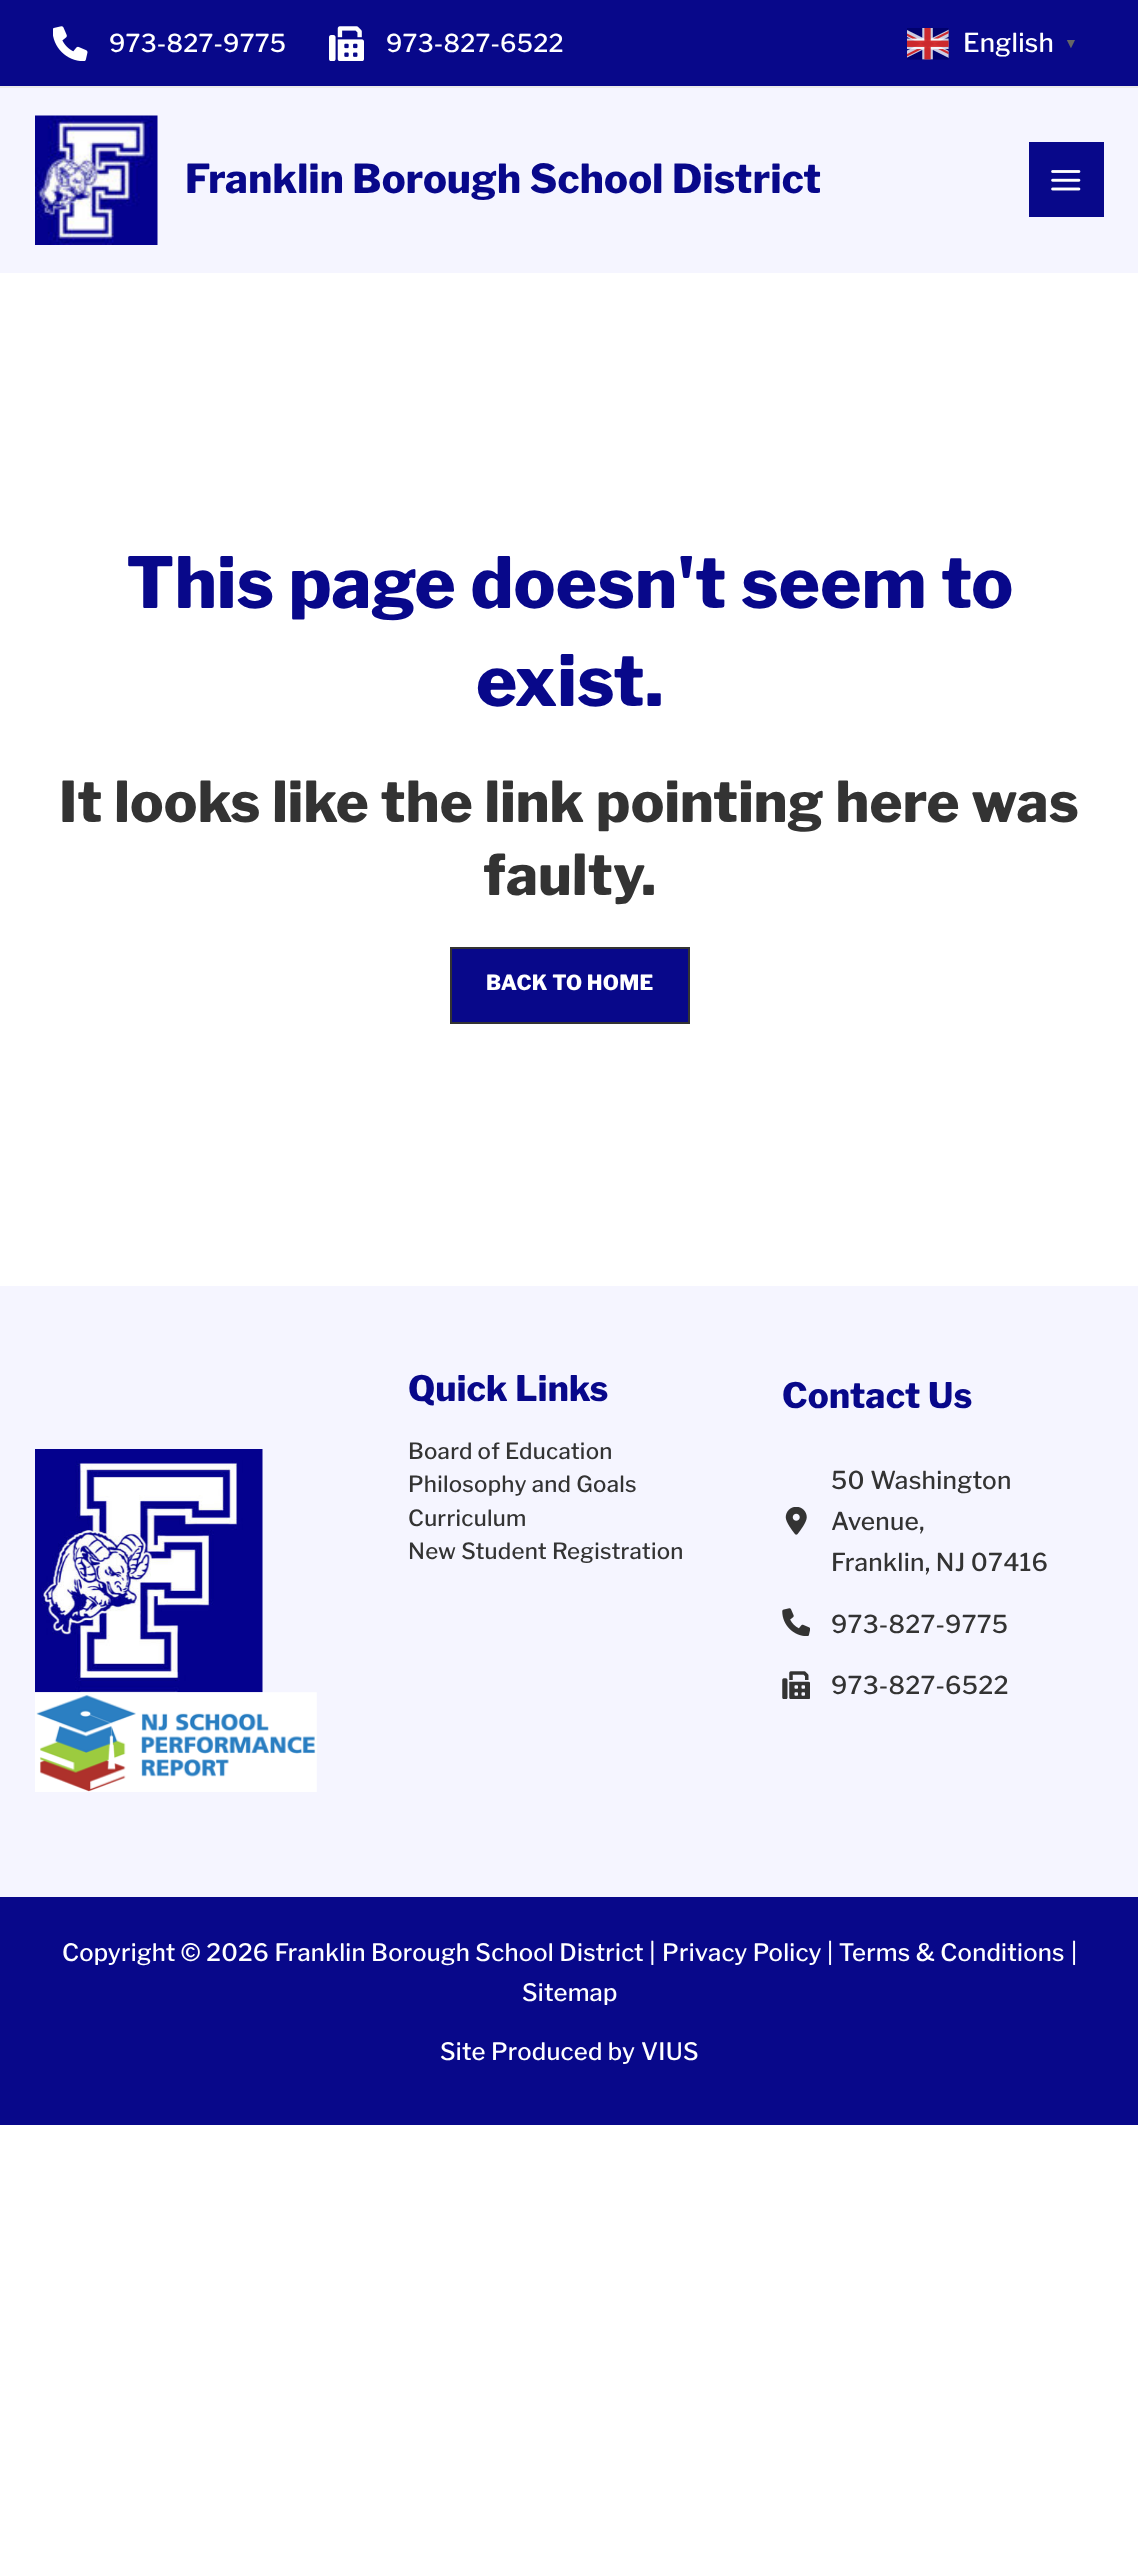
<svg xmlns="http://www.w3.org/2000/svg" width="1138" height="2575">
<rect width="100%" height="100%" fill="#fff"/>
<rect width="1138" height="86" fill="#08088a"/>
<rect y="86" width="1138" height="2" fill="#eaeaea"/>
<image x="53" y="26" width="35" height="35" href="media/1.png"/>
<text x="109" y="52" style="font-family:Libre Franklin;font-size:24.5px;font-weight:500;letter-spacing:0.25px;fill:#fff">973-827-9775</text>
<image x="329" y="26" width="35" height="35" href="media/2.png"/>
<text x="386" y="52" style="font-family:Libre Franklin;font-size:24.5px;font-weight:500;letter-spacing:0.25px;fill:#fff">973-827-6522</text>
<image x="907" y="28" width="42" height="32" href="media/3.png"/>
<text x="963" y="52" style="font-family:Libre Franklin;font-size:26px;font-weight:500;letter-spacing:0.25px;fill:#fff">English</text>
<text x="1064" y="48" style="font-family:Liberation Sans;font-size:14px;font-weight:bold;letter-spacing:0.25px;fill:#666">▼</text>
<rect y="88" width="1138" height="185" fill="#f5f5ff"/>
<image x="35" y="115" width="123" height="130" href="media/4.png"/>
<text x="185" y="193" style="font-family:Libre Franklin;font-size:39.9px;font-weight:800;letter-spacing:0.25px;fill:#08088a">Franklin Borough School District</text>
<rect x="1029" y="142" width="75" height="75" fill="#08088a"/>
<image x="1051" y="170" width="30" height="21" href="media/5.png"/>
<text x="126" y="608" style="font-family:Libre Franklin;font-size:70px;font-weight:800;letter-spacing:0.25px;fill:#08088a">This page doesn't seem to</text>
<text x="476" y="706" style="font-family:Libre Franklin;font-size:70px;font-weight:800;letter-spacing:0.25px;fill:#08088a">exist.</text>
<text x="59" y="822" style="font-family:Libre Franklin;font-size:56px;font-weight:800;letter-spacing:0.25px;fill:#333">It looks like the link pointing here was</text>
<text x="483" y="895" style="font-family:Libre Franklin;font-size:56px;font-weight:800;letter-spacing:0.25px;fill:#333">faulty.</text>
<rect x="451" y="948" width="238" height="75" fill="#08088a" stroke="#333" stroke-width="2"/>
<text x="486" y="990" style="font-family:Libre Franklin;font-size:20.75px;font-weight:800;letter-spacing:0.25px;fill:#fff">BACK TO HOME</text>
<rect y="1286" width="1138" height="611" fill="#f5f5ff"/>
<image x="35" y="1449" width="228" height="244" href="media/6.png"/>
<image x="35" y="1692" width="282" height="100" href="media/7.png"/>
<text x="408" y="1401" style="font-family:Libre Franklin;font-size:35px;font-weight:800;letter-spacing:0.25px;fill:#08088a">Quick Links</text>
<text x="408" y="1459" style="font-family:Libre Franklin;font-size:22.3px;font-weight:500;letter-spacing:0.25px;fill:#333">Board of Education</text>
<text x="408" y="1492" style="font-family:Libre Franklin;font-size:22.3px;font-weight:500;letter-spacing:0.25px;fill:#333">Philosophy and Goals</text>
<text x="408" y="1526" style="font-family:Libre Franklin;font-size:22.3px;font-weight:500;letter-spacing:0.25px;fill:#333">Curriculum</text>
<text x="408" y="1559" style="font-family:Libre Franklin;font-size:22.3px;font-weight:500;letter-spacing:0.25px;fill:#333">New Student Registration</text>
<text x="782" y="1408" style="font-family:Libre Franklin;font-size:35px;font-weight:800;letter-spacing:0.25px;fill:#08088a">Contact Us</text>
<image x="785" y="1507" width="22" height="28" href="media/8.png"/>
<text x="831" y="1489" style="font-family:Libre Franklin;font-size:24.5px;font-weight:500;letter-spacing:0.25px;fill:#333">50 Washington</text>
<text x="831" y="1530" style="font-family:Libre Franklin;font-size:24.5px;font-weight:500;letter-spacing:0.25px;fill:#333">Avenue,</text>
<text x="831" y="1571" style="font-family:Libre Franklin;font-size:24.5px;font-weight:500;letter-spacing:0.25px;fill:#333">Franklin, NJ 07416</text>
<image x="782" y="1608" width="28" height="28" href="media/9.png"/>
<text x="831" y="1633" style="font-family:Libre Franklin;font-size:24.5px;font-weight:500;letter-spacing:0.25px;fill:#333">973-827-9775</text>
<image x="782" y="1671" width="28" height="28" href="media/10.png"/>
<text x="831" y="1694" style="font-family:Libre Franklin;font-size:24.5px;font-weight:500;letter-spacing:0.25px;fill:#333">973-827-6522</text>
<rect y="1897" width="1138" height="228" fill="#08088a"/>
<text x="62" y="1961" style="font-family:Libre Franklin;font-size:23.9px;font-weight:500;letter-spacing:0.25px;fill:#fff">Copyright © 2026 Franklin Borough School District |</text>
<text x="662" y="1961" style="font-family:Libre Franklin;font-size:23.9px;font-weight:500;letter-spacing:0.25px;fill:#fff">Privacy Policy | Terms &amp; Conditions</text>
<text x="1071" y="1961" style="font-family:Libre Franklin;font-size:23.9px;font-weight:500;letter-spacing:0.25px;fill:#fff">|</text>
<text x="522" y="2001" style="font-family:Libre Franklin;font-size:23.9px;font-weight:500;letter-spacing:0.25px;fill:#fff">Sitemap</text>
<text x="440" y="2060" style="font-family:Libre Franklin;font-size:23.9px;font-weight:500;letter-spacing:0.25px;fill:#fff">Site Produced by</text>
<text x="641" y="2060" style="font-family:Libre Franklin;font-size:23.9px;font-weight:500;letter-spacing:0.25px;fill:#fff">VIUS</text>
</svg>
